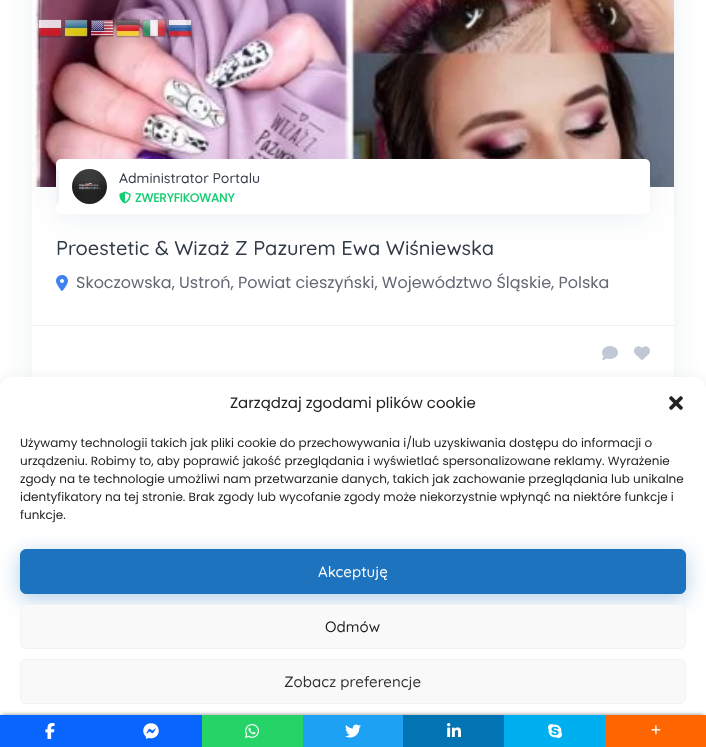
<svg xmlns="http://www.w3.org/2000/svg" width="706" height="747">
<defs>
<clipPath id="clip1"><path d="M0 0h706v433h-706zm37-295h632c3 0 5 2 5 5v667c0 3-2 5-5 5h-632c-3 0-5-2-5-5v-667c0-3 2-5 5-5z" clip-rule="evenodd"/></clipPath>
</defs>
<rect width="100%" height="100%" fill="#fff"/>
<g clip-path="url(#clip1)">
<rect x="32" y="-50" width="642" height="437" rx="5" fill="#07245612" filter="blur(15px)"/>
</g>
<image x="32" y="0" width="642" height="187" href="media/7.png"/>
<image x="38" y="19" width="24" height="19" href="media/1.png"/>
<image x="64" y="19" width="24" height="19" href="media/2.png"/>
<image x="90" y="20" width="24" height="18" href="media/3.png"/>
<image x="116" y="19" width="24" height="19" href="media/4.png"/>
<image x="142" y="19" width="24" height="19" href="media/5.png"/>
<image x="168" y="19" width="24" height="19" href="media/6.png"/>
<rect x="56" y="164" width="594" height="55" rx="5" fill="#07245612" filter="blur(15px)"/>
<rect x="56" y="159" width="594" height="55" rx="5" fill="#fff"/>
<path d="M56 169c1.5 0 3 1.5 3 3v29c0 1.5-1.5 3-3 3z" fill="#f0f2f5"/>
<image x="72" y="169" width="35" height="35" href="media/8.png"/>
<text x="119" y="183" style="font-family:Quicksand;font-size:14px;font-weight:300;fill:#333a47">Administrator Portalu</text>
<image x="119" y="191" width="12" height="13" href="media/9.png"/>
<text x="135" y="202" style="font-family:Poppins;font-size:12px;font-weight:bold;fill:#15cd72">ZWERYFIKOWANY</text>
<text x="56" y="255" style="font-family:Quicksand;font-size:20px;font-weight:300;fill:#333a47">Proestetic &amp; Wizaż Z Pazurem Ewa Wiśniewska</text>
<image x="56" y="275" width="12" height="16" href="media/10.png"/>
<text x="76" y="288" style="font-family:Poppins;font-size:16px;fill:#636873">Skoczowska, Ustroń, Powiat cieszyński, Województwo Śląskie, Polska</text>
<rect x="32" y="325" width="642" height="1" fill="#eceff2"/>
<image x="602" y="346" width="16" height="14" href="media/11.png"/>
<image x="634" y="346" width="16" height="14" href="media/12.png"/>
<rect y="387" width="706" height="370" rx="12" fill="#00000030" filter="blur(10px)"/>
<rect y="377" width="706" height="370" rx="12" fill="#fff"/>
<text x="230" y="408" style="font-family:Poppins;font-size:15px;fill:#222">Zarządzaj zgodami plików cookie</text>
<image x="669" y="396" width="14" height="14" href="media/13.png"/>
<text x="20" y="447" style="font-family:Poppins;font-size:12px;fill:#222">Używamy technologii takich jak pliki cookie do przechowywania i/lub uzyskiwania dostępu do informacji o</text>
<text x="20" y="465" style="font-family:Poppins;font-size:12px;fill:#222">urządzeniu. Robimy to, aby poprawić jakość przeglądania i wyświetlać spersonalizowane reklamy. Wyrażenie</text>
<text x="20" y="483" style="font-family:Poppins;font-size:12px;fill:#222">zgody na te technologie umożliwi nam przetwarzanie danych, takich jak zachowanie przeglądania lub unikalne</text>
<text x="20" y="501" style="font-family:Poppins;font-size:12px;fill:#222">identyfikatory na tej stronie. Brak zgody lub wycofanie zgody może niekorzystnie wpłynąć na niektóre funkcje i</text>
<rect x="20" y="554" width="666" height="45" rx="6" fill="#1e73be59" filter="blur(10.5px)"/>
<text x="20" y="519" style="font-family:Poppins;font-size:12px;fill:#222">funkcje.</text>
<rect x="20.5" y="549.5" width="665" height="44" rx="5.5" fill="#1e73be" stroke="#1e73be"/>
<text x="318" y="577" style="font-family:Quicksand;font-size:15px;font-weight:300;fill:#fff">Akceptuję</text>
<rect x="20.5" y="604.5" width="665" height="44" rx="5.5" fill="#f9f9f9" stroke="#f2f2f2"/>
<text x="325" y="632" style="font-family:Quicksand;font-size:15px;font-weight:300;fill:#222">Odmów</text>
<rect x="20.5" y="659.5" width="665" height="44" rx="5.5" fill="#f9f9f9" stroke="#f2f2f2"/>
<text x="284" y="687" style="font-family:Quicksand;font-size:15px;font-weight:300;fill:#333">Zobacz preferencje</text>
<rect x="2" y="715" width="702" height="28" fill="#00000080" filter="blur(2px)"/>
<rect y="715" width="202" height="32" fill="#0866ff"/>
<image x="45" y="723" width="10" height="16" href="media/14.png"/>
<rect x="202" y="715" width="101" height="32" fill="#25d366"/>
<image x="245" y="724" width="14" height="14" href="media/15.png"/>
<rect x="303" y="715" width="100" height="32" fill="#1da1f2"/>
<image x="345" y="724" width="16" height="14" href="media/16.png"/>
<rect x="403" y="715" width="101" height="32" fill="#0274b3"/>
<image x="447" y="723" width="14" height="14" href="media/17.png"/>
<rect x="504" y="715" width="101" height="32" fill="#00aff0"/>
<image x="548" y="724" width="14" height="14" href="media/18.png"/>
<rect x="605" y="715" width="101" height="32" fill="#ff6500"/>
<image x="651" y="725" width="10" height="10" href="media/19.png"/>
<image x="143" y="723" width="16" height="16" href="media/20.png"/>
</svg>
